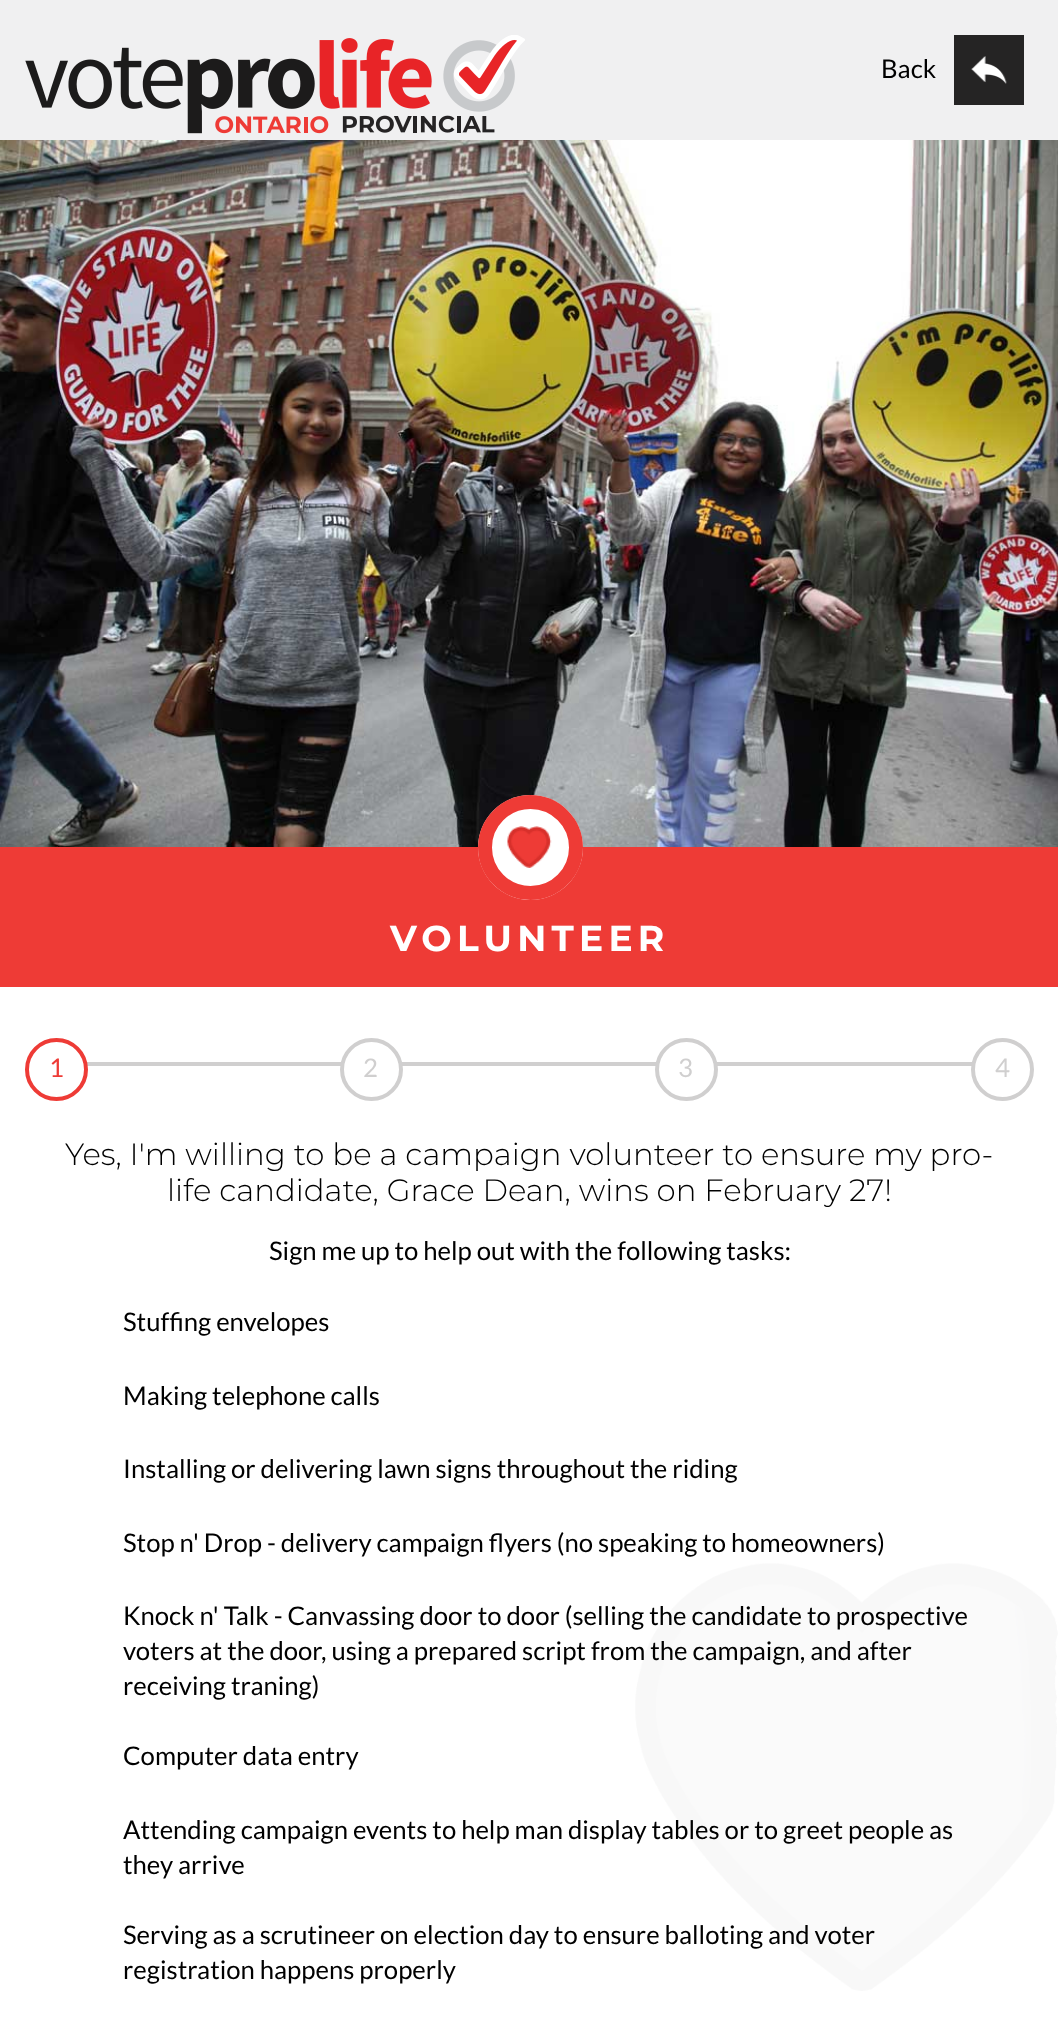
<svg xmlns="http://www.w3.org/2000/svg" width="1058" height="2024">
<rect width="100%" height="100%" fill="#fff"/>
<rect width="1058" height="140" fill="#f0f0f1"/>
<image x="25" y="35" width="500" height="99" href="media/1.png"/>
<text x="881" y="78" style="font-family:Lato;font-size:25.7px;fill:#000">Back</text>
<rect x="954" y="35" width="70" height="70" fill="#252424"/>
<image x="971" y="56" width="36" height="28" href="media/2.png"/>
<image x="0" y="140" width="1058" height="707" href="media/3.png"/>
<rect y="847" width="1058" height="140" fill="#ee3b36"/>
<circle cx="530.5" cy="847.5" r="52.5" fill="#fff"/>
<image x="507" y="826" width="45" height="42" href="media/4.png"/>
<circle cx="530.5" cy="847.5" r="45.5" fill="none" stroke="#ee3b36" stroke-width="14"/>
<text x="390" y="951" style="font-family:Montserrat;font-size:36px;font-weight:bold;letter-spacing:5.25px;fill:#fff">VOLUNTEER</text>
<image x="635" y="1563" width="423" height="428" href="media/5.png"/>
<rect x="87" y="1062" width="885" height="4" fill="#d0cfcf"/>
<circle cx="56.5" cy="1069.5" r="29.5" fill="#fff" stroke="#ee3b36" stroke-width="4"/>
<text x="49" y="1077" style="font-family:Lato;font-size:25.7px;fill:#ee3b36">1</text>
<circle cx="371.5" cy="1069.5" r="29.5" fill="#fff" stroke="#d0cfcf" stroke-width="4"/>
<text x="363" y="1077" style="font-family:Lato;font-size:25.7px;fill:#d0cfcf">2</text>
<circle cx="686.5" cy="1069.5" r="29.5" fill="#fff" stroke="#d0cfcf" stroke-width="4"/>
<text x="678" y="1077" style="font-family:Lato;font-size:25.7px;fill:#d0cfcf">3</text>
<circle cx="1002.5" cy="1069.5" r="29.5" fill="#fff" stroke="#d0cfcf" stroke-width="4"/>
<text x="995" y="1077" style="font-family:Lato;font-size:25.7px;fill:#d0cfcf">4</text>
<text x="65" y="1165" style="font-family:Montserrat;font-size:30.8px;font-weight:300;fill:#000">Yes, I'm willing to be a campaign volunteer to ensure my pro-</text>
<text x="167" y="1201" style="font-family:Montserrat;font-size:30.8px;font-weight:300;fill:#000">life candidate, Grace Dean, wins on February 27!</text>
<text x="269" y="1260" style="font-family:Lato;font-size:25.7px;fill:#000">Sign me up to help out with the following tasks:</text>
<text x="123" y="1331" style="font-family:Lato;font-size:25.7px;fill:#000">Stuffing envelopes</text>
<text x="123" y="1405" style="font-family:Lato;font-size:25.7px;fill:#000">Making telephone calls</text>
<text x="123" y="1478" style="font-family:Lato;font-size:25.7px;fill:#000">Installing or delivering lawn signs throughout the riding</text>
<text x="123" y="1552" style="font-family:Lato;font-size:25.7px;fill:#000">Stop n' Drop - delivery campaign flyers (no speaking to homeowners)</text>
<text x="123" y="1625" style="font-family:Lato;font-size:25.7px;fill:#000">Knock n' Talk - Canvassing door to door (selling the candidate to prospective</text>
<text x="123" y="1660" style="font-family:Lato;font-size:25.7px;fill:#000">voters at the door, using a prepared script from the campaign, and after</text>
<text x="123" y="1695" style="font-family:Lato;font-size:25.7px;fill:#000">receiving traning)</text>
<text x="123" y="1765" style="font-family:Lato;font-size:25.7px;fill:#000">Computer data entry</text>
<text x="123" y="1839" style="font-family:Lato;font-size:25.7px;fill:#000">Attending campaign events to help man display tables or to greet people as</text>
<text x="123" y="1874" style="font-family:Lato;font-size:25.7px;fill:#000">they arrive</text>
<text x="123" y="1944" style="font-family:Lato;font-size:25.7px;fill:#000">Serving as a scrutineer on election day to ensure balloting and voter</text>
<text x="123" y="1979" style="font-family:Lato;font-size:25.7px;fill:#000">registration happens properly</text>
</svg>
